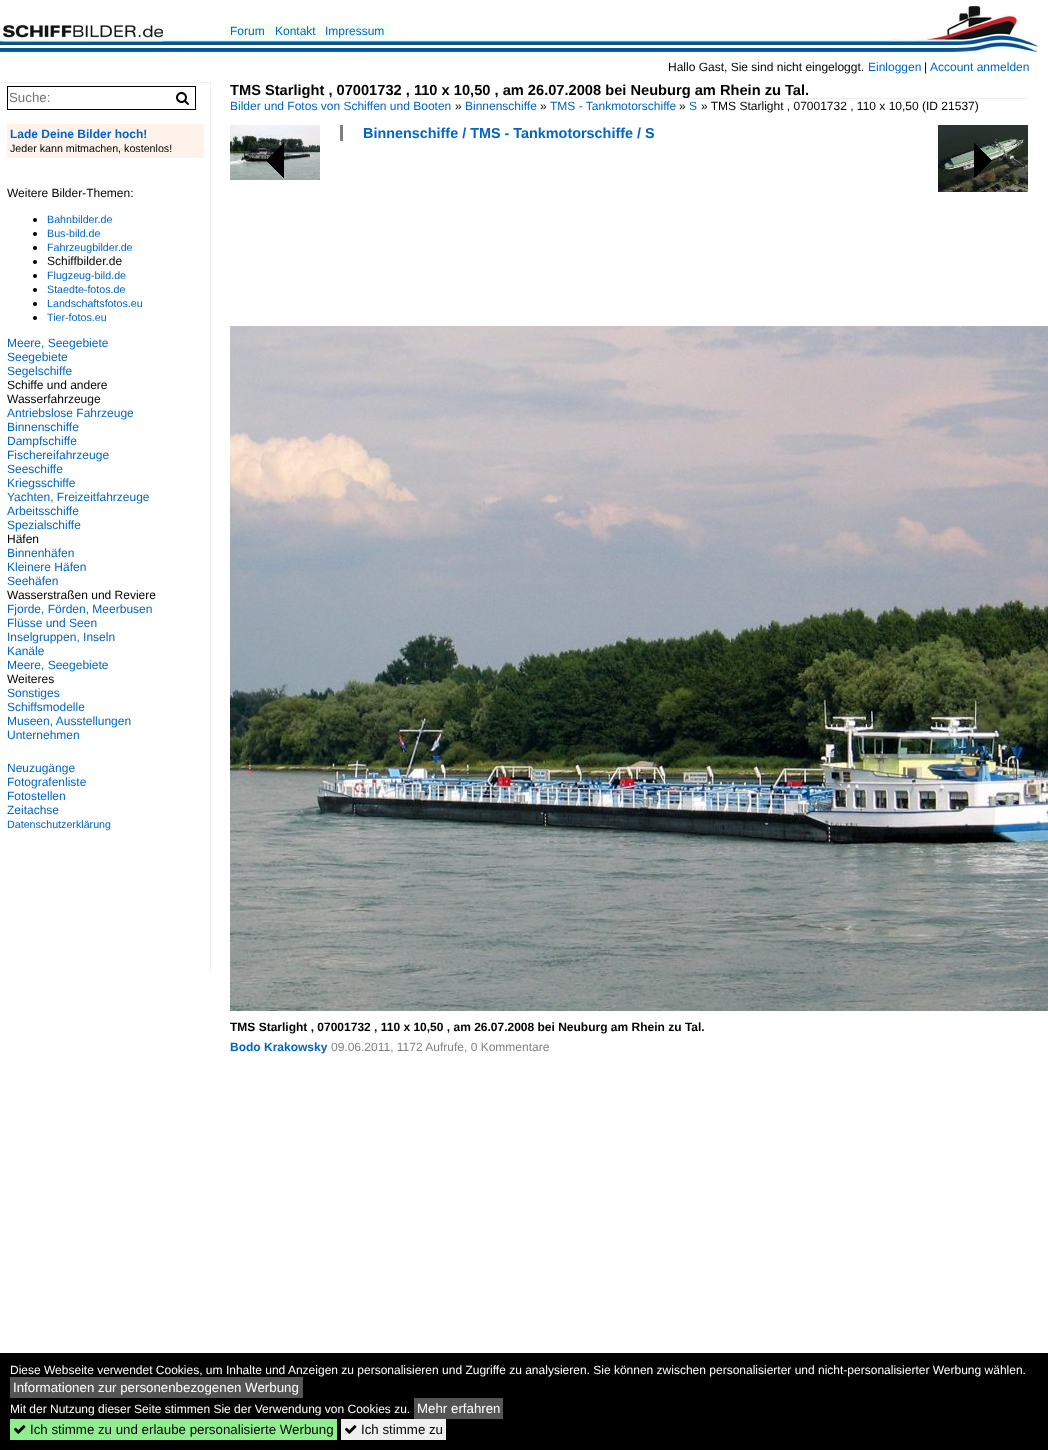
<svg xmlns="http://www.w3.org/2000/svg" width="1048" height="1450">
<rect width="100%" height="100%" fill="#fff"/>
<image x="0" y="40" width="890" height="12" href="media/3.png"/>
<image x="3" y="22" width="160" height="31" href="media/1.png"/>
<rect x="225" y="24" width="165" height="14" fill="#f4fff4"/>
<text x="230" y="35" style="font-family:Liberation Sans;font-size:12px;fill:#0065c4">Forum</text>
<text x="275" y="35" style="font-family:Liberation Sans;font-size:12px;fill:#0065c4">Kontakt</text>
<text x="325" y="35" style="font-family:Liberation Sans;font-size:12px;fill:#0065c4">Impressum</text>
<image x="890" y="6" width="148" height="48" href="media/2.png"/>
<text x="668" y="71" style="font-family:Liberation Sans;font-size:12px;fill:#000">Hallo Gast, Sie sind nicht eingeloggt.</text>
<text x="868" y="71" style="font-family:Liberation Sans;font-size:12px;fill:#0065c4">Einloggen</text>
<text x="924" y="71" style="font-family:Liberation Sans;font-size:12px;fill:#000">|</text>
<text x="930" y="71" style="font-family:Liberation Sans;font-size:12px;fill:#0065c4">Account anmelden</text>
<rect y="82" width="211" height="1" fill="#efefef"/>
<rect x="210" y="82" width="1" height="889" fill="#efefef"/>
<rect x="7" y="86" width="189" height="1" fill="#000"/>
<rect x="7" y="109" width="163" height="1" fill="#000"/>
<rect x="7" y="86" width="1" height="24" fill="#000"/>
<text x="9" y="102" style="font-family:Liberation Sans;font-size:13.3px;fill:#757575">Suche:</text>
<rect x="195" y="86" width="1" height="24" fill="#000"/>
<rect x="170" y="109" width="26" height="1" fill="#000"/>
<image x="176" y="92" width="13" height="13" href="media/4.png"/>
<rect x="7" y="124" width="197" height="34" fill="#fff2eb"/>
<text x="10" y="138" style="font-family:Liberation Sans;font-size:12px;font-weight:bold;fill:#0065c4">Lade Deine Bilder hoch!</text>
<text x="10" y="152" style="font-family:Liberation Sans;font-size:10.7px;fill:#000">Jeder kann mitmachen, kostenlos!</text>
<text x="7" y="197" style="font-family:Liberation Sans;font-size:12px;fill:#000">Weitere Bilder-Themen:</text>
<circle cx="35" cy="220" r="2" fill="#000"/>
<text x="47" y="223" style="font-family:Liberation Sans;font-size:10.7px;fill:#0065c4">Bahnbilder.de</text>
<circle cx="35" cy="234" r="2" fill="#000"/>
<text x="47" y="237" style="font-family:Liberation Sans;font-size:10.7px;fill:#0065c4">Bus-bild.de</text>
<circle cx="35" cy="248" r="2" fill="#000"/>
<text x="47" y="251" style="font-family:Liberation Sans;font-size:10.7px;fill:#0065c4">Fahrzeugbilder.de</text>
<circle cx="35" cy="262" r="2" fill="#000"/>
<text x="47" y="265" style="font-family:Liberation Sans;font-size:12px;fill:#000">Schiffbilder.de</text>
<circle cx="35" cy="276" r="2" fill="#000"/>
<text x="47" y="279" style="font-family:Liberation Sans;font-size:10.7px;fill:#0065c4">Flugzeug-bild.de</text>
<circle cx="35" cy="290" r="2" fill="#000"/>
<text x="47" y="293" style="font-family:Liberation Sans;font-size:10.7px;fill:#0065c4">Staedte-fotos.de</text>
<circle cx="35" cy="304" r="2" fill="#000"/>
<text x="47" y="307" style="font-family:Liberation Sans;font-size:10.7px;fill:#0065c4">Landschaftsfotos.eu</text>
<circle cx="35" cy="318" r="2" fill="#000"/>
<text x="47" y="321" style="font-family:Liberation Sans;font-size:10.7px;fill:#0065c4">Tier-fotos.eu</text>
<text x="7" y="347" style="font-family:Liberation Sans;font-size:12px;fill:#0065c4">Meere, Seegebiete</text>
<text x="7" y="361" style="font-family:Liberation Sans;font-size:12px;fill:#0065c4">Seegebiete</text>
<text x="7" y="375" style="font-family:Liberation Sans;font-size:12px;fill:#0065c4">Segelschiffe</text>
<text x="7" y="389" style="font-family:Liberation Sans;font-size:12px;fill:#000">Schiffe und andere</text>
<text x="7" y="403" style="font-family:Liberation Sans;font-size:12px;fill:#000">Wasserfahrzeuge</text>
<text x="7" y="417" style="font-family:Liberation Sans;font-size:12px;fill:#0065c4">Antriebslose Fahrzeuge</text>
<text x="7" y="431" style="font-family:Liberation Sans;font-size:12px;fill:#0065c4">Binnenschiffe</text>
<text x="7" y="445" style="font-family:Liberation Sans;font-size:12px;fill:#0065c4">Dampfschiffe</text>
<text x="7" y="459" style="font-family:Liberation Sans;font-size:12px;fill:#0065c4">Fischereifahrzeuge</text>
<text x="7" y="473" style="font-family:Liberation Sans;font-size:12px;fill:#0065c4">Seeschiffe</text>
<text x="7" y="487" style="font-family:Liberation Sans;font-size:12px;fill:#0065c4">Kriegsschiffe</text>
<text x="7" y="501" style="font-family:Liberation Sans;font-size:12px;fill:#0065c4">Yachten, Freizeitfahrzeuge</text>
<text x="7" y="515" style="font-family:Liberation Sans;font-size:12px;fill:#0065c4">Arbeitsschiffe</text>
<text x="7" y="529" style="font-family:Liberation Sans;font-size:12px;fill:#0065c4">Spezialschiffe</text>
<text x="7" y="543" style="font-family:Liberation Sans;font-size:12px;fill:#000">Häfen</text>
<text x="7" y="557" style="font-family:Liberation Sans;font-size:12px;fill:#0065c4">Binnenhäfen</text>
<text x="7" y="571" style="font-family:Liberation Sans;font-size:12px;fill:#0065c4">Kleinere Häfen</text>
<text x="7" y="585" style="font-family:Liberation Sans;font-size:12px;fill:#0065c4">Seehäfen</text>
<text x="7" y="599" style="font-family:Liberation Sans;font-size:12px;fill:#000">Wasserstraßen und Reviere</text>
<text x="7" y="613" style="font-family:Liberation Sans;font-size:12px;fill:#0065c4">Fjorde, Förden, Meerbusen</text>
<text x="7" y="627" style="font-family:Liberation Sans;font-size:12px;fill:#0065c4">Flüsse und Seen</text>
<text x="7" y="641" style="font-family:Liberation Sans;font-size:12px;fill:#0065c4">Inselgruppen, Inseln</text>
<text x="7" y="655" style="font-family:Liberation Sans;font-size:12px;fill:#0065c4">Kanäle</text>
<text x="7" y="669" style="font-family:Liberation Sans;font-size:12px;fill:#0065c4">Meere, Seegebiete</text>
<text x="7" y="683" style="font-family:Liberation Sans;font-size:12px;fill:#000">Weiteres</text>
<text x="7" y="697" style="font-family:Liberation Sans;font-size:12px;fill:#0065c4">Sonstiges</text>
<text x="7" y="711" style="font-family:Liberation Sans;font-size:12px;fill:#0065c4">Schiffsmodelle</text>
<text x="7" y="725" style="font-family:Liberation Sans;font-size:12px;fill:#0065c4">Museen, Ausstellungen</text>
<text x="7" y="739" style="font-family:Liberation Sans;font-size:12px;fill:#0065c4">Unternehmen</text>
<text x="7" y="772" style="font-family:Liberation Sans;font-size:12px;fill:#0065c4">Neuzugänge</text>
<text x="7" y="786" style="font-family:Liberation Sans;font-size:12px;fill:#0065c4">Fotografenliste</text>
<text x="7" y="800" style="font-family:Liberation Sans;font-size:12px;fill:#0065c4">Fotostellen</text>
<text x="7" y="814" style="font-family:Liberation Sans;font-size:12px;fill:#0065c4">Zeitachse</text>
<text x="7" y="828" style="font-family:Liberation Sans;font-size:10.7px;fill:#0065c4">Datenschutzerklärung</text>
<rect x="230" y="98" width="798" height="1" fill="#efefef"/>
<text x="230" y="95" style="font-family:Liberation Sans;font-size:14.65px;font-weight:bold;fill:#000">TMS Starlight , 07001732 , 110 x 10,50 , am 26.07.2008 bei Neuburg am Rhein zu Tal.</text>
<text x="230" y="110" style="font-family:Liberation Sans;font-size:12px;fill:#0065c4">Bilder und Fotos von Schiffen und Booten</text>
<text x="455" y="110" style="font-family:Liberation Sans;font-size:12px;fill:#000">»</text>
<text x="465" y="110" style="font-family:Liberation Sans;font-size:12px;fill:#0065c4">Binnenschiffe</text>
<text x="540" y="110" style="font-family:Liberation Sans;font-size:12px;fill:#000">»</text>
<text x="550" y="110" style="font-family:Liberation Sans;font-size:12px;fill:#0065c4">TMS - Tankmotorschiffe</text>
<text x="679" y="110" style="font-family:Liberation Sans;font-size:12px;fill:#000">»</text>
<text x="689" y="110" style="font-family:Liberation Sans;font-size:12px;fill:#0065c4">S</text>
<text x="701" y="110" style="font-family:Liberation Sans;font-size:12px;fill:#000">» TMS Starlight , 07001732 , 110 x 10,50 (ID 21537)</text>
<image x="230" y="125" width="90" height="55" href="media/5.png"/>
<image x="266" y="143" width="18" height="35" href="media/6.png"/>
<rect x="340" y="125" width="3" height="16" fill="#808080"/>
<text x="363" y="138" style="font-family:Liberation Sans;font-size:14.4px;font-weight:bold;fill:#0065c4">Binnenschiffe / TMS - Tankmotorschiffe / S</text>
<image x="938" y="125" width="90" height="67" href="media/7.png"/>
<image x="974" y="143" width="18" height="35" href="media/8.png"/>
<image x="230" y="326" width="818" height="685" href="media/9.png"/>
<text x="230" y="1031" style="font-family:Liberation Sans;font-size:12px;font-weight:bold;fill:#000">TMS Starlight , 07001732 , 110 x 10,50 , am 26.07.2008 bei Neuburg am Rhein zu Tal.</text>
<text x="230" y="1051" style="font-family:Liberation Sans;font-size:12px;font-weight:bold;fill:#0065c4">Bodo Krakowsky</text>
<text x="331" y="1051" style="font-family:Liberation Sans;font-size:12px;fill:#808080">09.06.2011, 1172 Aufrufe, 0 Kommentare</text>
<rect y="1353" width="1048" height="97" fill="#000"/>
<text x="10" y="1374" style="font-family:Liberation Sans;font-size:12px;fill:#fff">Diese Webseite verwendet Cookies, um Inhalte und Anzeigen zu personalisieren und Zugriffe zu analysieren. Sie können zwischen personalisierter und nicht-personalisierter Werbung wählen.</text>
<rect x="10" y="1377" width="293" height="21" fill="#555"/>
<text x="13" y="1392" style="font-family:Liberation Sans;font-size:13.3px;fill:#fff">Informationen zur personenbezogenen Werbung</text>
<text x="10" y="1413" style="font-family:Liberation Sans;font-size:12px;fill:#fff">Mit der Nutzung dieser Seite stimmen Sie der Verwendung von Cookies zu.</text>
<rect x="414" y="1398" width="89" height="21" fill="#555"/>
<text x="417" y="1413" style="font-family:Liberation Sans;font-size:13.3px;fill:#fff">Mehr erfahren</text>
<rect x="10" y="1419" width="327" height="21" fill="#90ee90"/>
<image x="13" y="1425" width="13" height="9" href="media/10.png"/>
<text x="30" y="1434" style="font-family:Liberation Sans;font-size:13.3px;fill:#000">Ich stimme zu und erlaube personalisierte Werbung</text>
<rect x="341" y="1419" width="105" height="21" fill="#efefef"/>
<image x="344" y="1425" width="13" height="9" href="media/11.png"/>
<text x="361" y="1434" style="font-family:Liberation Sans;font-size:13.3px;fill:#000">Ich stimme zu</text>
</svg>
